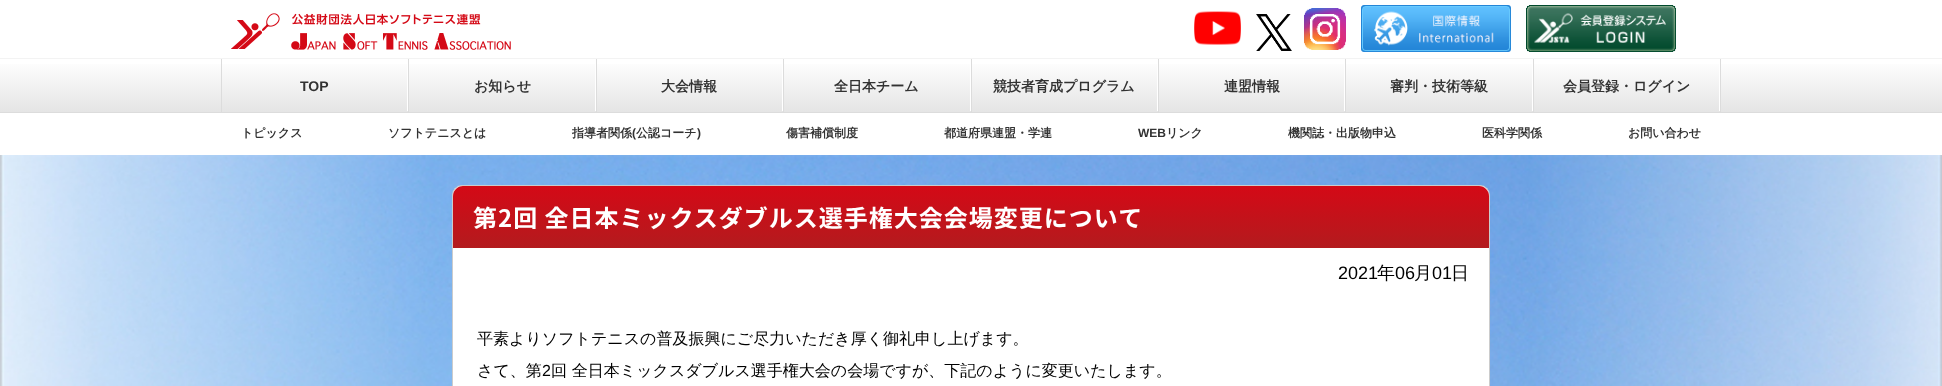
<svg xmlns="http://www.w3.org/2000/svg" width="1942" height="386">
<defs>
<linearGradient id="g1" gradientUnits="userSpaceOnUse" x1="971" y1="59" x2="971" y2="112"><stop offset="0" stop-color="#fff"/><stop offset="1" stop-color="#e5e5e5"/></linearGradient>
<linearGradient id="g2" gradientUnits="userSpaceOnUse" x1="971" y1="186" x2="971" y2="248"><stop offset="0" stop-color="#d40916"/><stop offset="1" stop-color="#b31b1e"/></linearGradient>
</defs>
<rect width="100%" height="100%" fill="#fff"/>
<image x="231" y="13" width="280" height="37" href="media/1.png"/>
<image x="1194" y="11" width="47" height="34" href="media/2.png"/>
<image x="1256" y="14" width="36" height="37" href="media/3.png"/>
<image x="1304" y="8" width="42" height="42" href="media/4.png"/>
<image x="1361" y="5" width="150" height="47" href="media/5.png"/>
<image x="1526" y="5" width="150" height="47" href="media/6.png"/>
<rect y="64" width="1942" height="48" fill="url(#g1)"/>
<rect y="58" width="1942" height="1" fill="#f3f3f3"/>
<rect y="112" width="1942" height="1" fill="#dcdcdc"/>
<rect x="221" y="59" width="1" height="53" fill="#dcdcdc"/>
<rect x="408" y="59" width="1" height="53" fill="#dcdcdc"/>
<rect x="407" y="59" width="1" height="52" fill="#fff"/>
<text x="300" y="91" style="font-family:Liberation Sans;font-size:14px;font-weight:bold;fill:#323232">TOP</text>
<rect x="596" y="59" width="1" height="53" fill="#dcdcdc"/>
<rect x="595" y="59" width="1" height="52" fill="#fff"/>
<text x="474" y="91" style="font-family:WenQuanYi Zen Hei;font-size:14px;font-weight:bold;fill:#323232">お知らせ</text>
<rect x="783" y="59" width="1" height="53" fill="#dcdcdc"/>
<rect x="782" y="59" width="1" height="52" fill="#fff"/>
<text x="661" y="91" style="font-family:WenQuanYi Zen Hei;font-size:14px;font-weight:bold;fill:#323232">大会情報</text>
<rect x="971" y="59" width="1" height="53" fill="#dcdcdc"/>
<rect x="970" y="59" width="1" height="52" fill="#fff"/>
<text x="834" y="91" style="font-family:WenQuanYi Zen Hei;font-size:14px;font-weight:bold;fill:#323232">全日本チーム</text>
<rect x="1158" y="59" width="1" height="53" fill="#dcdcdc"/>
<rect x="1157" y="59" width="1" height="52" fill="#fff"/>
<text x="993" y="91" style="font-family:WenQuanYi Zen Hei;font-size:14px;font-weight:bold;fill:#323232">競技者育成プログラム</text>
<rect x="1345" y="59" width="1" height="53" fill="#dcdcdc"/>
<rect x="1344" y="59" width="1" height="52" fill="#fff"/>
<text x="1224" y="91" style="font-family:WenQuanYi Zen Hei;font-size:14px;font-weight:bold;fill:#323232">連盟情報</text>
<rect x="1533" y="59" width="1" height="53" fill="#dcdcdc"/>
<rect x="1532" y="59" width="1" height="52" fill="#fff"/>
<text x="1390" y="91" style="font-family:WenQuanYi Zen Hei;font-size:14px;font-weight:bold;fill:#323232">審判・技術等級</text>
<rect x="1720" y="59" width="1" height="53" fill="#dcdcdc"/>
<rect x="1719" y="59" width="1" height="52" fill="#fff"/>
<text x="1563" y="91" style="font-family:WenQuanYi Zen Hei;font-size:14px;font-weight:bold;fill:#323232">会員登録・ログイン</text>
<text x="241" y="137" style="font-family:WenQuanYi Zen Hei;font-size:12px;font-weight:bold;fill:#323232">トピックス</text>
<text x="388" y="137" style="font-family:WenQuanYi Zen Hei;font-size:12px;font-weight:bold;fill:#323232">ソフトテニスとは</text>
<text x="572" y="137" style="font-family:WenQuanYi Zen Hei;font-size:12px;font-weight:bold;fill:#323232">指導者関係</text>
<text x="632" y="137" style="font-family:Liberation Sans;font-size:12px;font-weight:bold;fill:#323232">(</text>
<text x="636" y="137" style="font-family:WenQuanYi Zen Hei;font-size:12px;font-weight:bold;fill:#323232">公認コーチ</text>
<text x="697" y="137" style="font-family:Liberation Sans;font-size:12px;font-weight:bold;fill:#323232">)</text>
<text x="786" y="137" style="font-family:WenQuanYi Zen Hei;font-size:12px;font-weight:bold;fill:#323232">傷害補償制度</text>
<text x="944" y="137" style="font-family:WenQuanYi Zen Hei;font-size:12px;font-weight:bold;fill:#323232">都道府県連盟・学連</text>
<text x="1138" y="137" style="font-family:Liberation Sans;font-size:12px;font-weight:bold;fill:#323232">WEB</text>
<text x="1166" y="137" style="font-family:WenQuanYi Zen Hei;font-size:12px;font-weight:bold;fill:#323232">リンク</text>
<text x="1288" y="137" style="font-family:WenQuanYi Zen Hei;font-size:12px;font-weight:bold;fill:#323232">機関誌・出版物申込</text>
<text x="1482" y="137" style="font-family:WenQuanYi Zen Hei;font-size:12px;font-weight:bold;fill:#323232">医科学関係</text>
<text x="1628" y="137" style="font-family:WenQuanYi Zen Hei;font-size:12px;font-weight:bold;fill:#323232">お問い合わせ</text>
<image x="0" y="155" width="1942" height="231" href="media/7.png"/>
<rect x="452.5" y="185.5" width="1037" height="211" rx="9.5" fill="#fff" stroke="#ccc"/>
<path d="M463 186h1016c5.5 0 10 4.5 10 10v52h-1036v-52c0-5.5 4.5-10 10-10z" fill="url(#g2)"/>
<text x="473" y="227" style="font-family:Noto Sans JP;font-size:24px;font-weight:bold;letter-spacing:1px;fill:#fff">第2回 全日本ミックスダブルス選手権大会会場変更について</text>
<text x="1338" y="279" style="font-family:Liberation Sans;font-size:18px;fill:#000">2021</text>
<text x="1377" y="279" style="font-family:WenQuanYi Zen Hei;font-size:18px;font-weight:500;fill:#000">年</text>
<text x="1395" y="279" style="font-family:Liberation Sans;font-size:18px;fill:#000">06</text>
<text x="1414" y="279" style="font-family:WenQuanYi Zen Hei;font-size:18px;font-weight:500;fill:#000">月</text>
<text x="1432" y="279" style="font-family:Liberation Sans;font-size:18px;fill:#000">01</text>
<text x="1451" y="279" style="font-family:WenQuanYi Zen Hei;font-size:18px;font-weight:500;fill:#000">日</text>
<text x="477" y="344" style="font-family:WenQuanYi Zen Hei;font-size:16px;font-weight:500;fill:#000">平素よりソフトテニスの普及振興にご尽力いただき厚く御礼申し上げます。</text>
<text x="477" y="376" style="font-family:WenQuanYi Zen Hei;font-size:16px;font-weight:500;fill:#000">さて、第</text>
<text x="542" y="376" style="font-family:Liberation Sans;font-size:16px;fill:#000">2</text>
<text x="551" y="376" style="font-family:WenQuanYi Zen Hei;font-size:16px;font-weight:500;fill:#000">回 全日本ミックスダブルス選手権大会の会場ですが、下記のように変更いたします。</text>
</svg>
